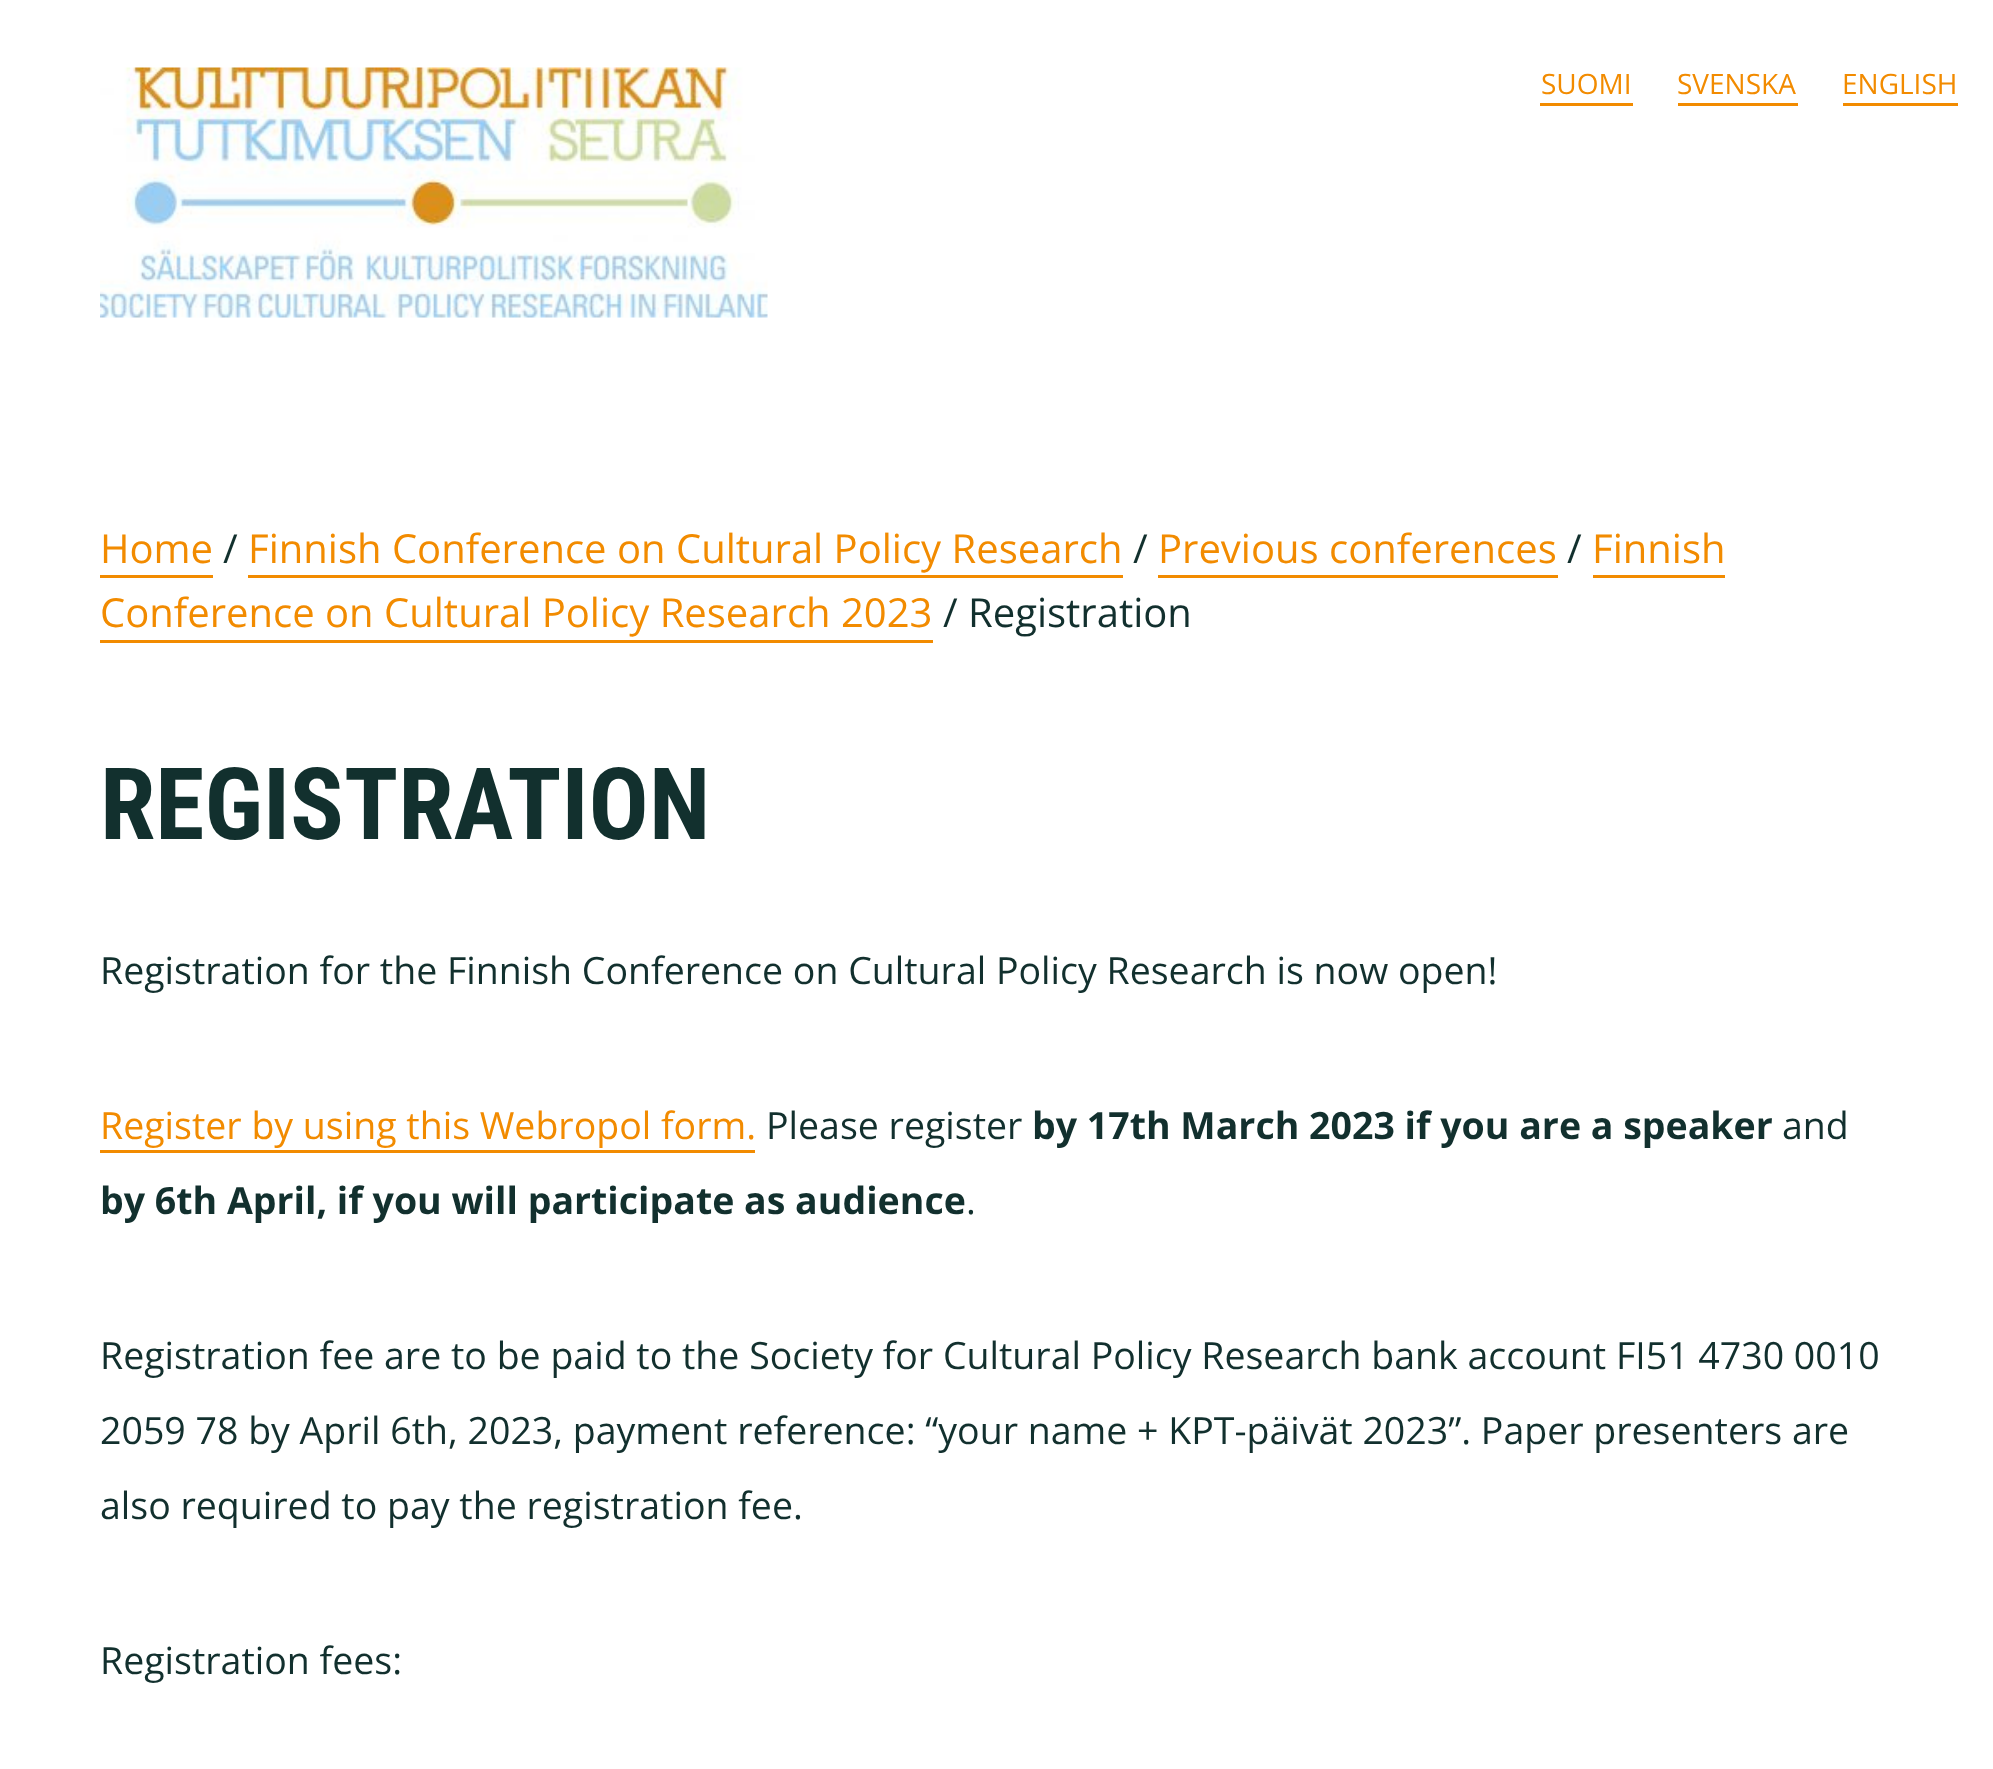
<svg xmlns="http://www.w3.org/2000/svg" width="1993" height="1769">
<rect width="100%" height="100%" fill="#fff"/>
<image x="100" y="67" width="668" height="251" href="media/1.png"/>
<text x="1541" y="94" style="font-family:Open Sans;font-size:28px;fill:#f28b00">SUOMI</text>
<rect x="1540" y="103" width="93" height="3" fill="#f28b00"/>
<text x="1677" y="94" style="font-family:Open Sans;font-size:28px;fill:#f28b00">SVENSKA</text>
<rect x="1678" y="103" width="120" height="3" fill="#f28b00"/>
<text x="1842" y="94" style="font-family:Open Sans;font-size:28px;fill:#f28b00">ENGLISH</text>
<rect x="1843" y="103" width="115" height="3" fill="#f28b00"/>
<text x="100" y="563" style="font-family:Open Sans;font-size:40px;fill:#f28b00">Home</text>
<rect x="100" y="575" width="113" height="3" fill="#f28b00"/>
<text x="223" y="563" style="font-family:Open Sans;font-size:40px;fill:#12302e">/</text>
<text x="248" y="563" style="font-family:Open Sans;font-size:40px;fill:#f28b00">Finnish Conference on Cultural Policy Research</text>
<rect x="248" y="575" width="875" height="3" fill="#f28b00"/>
<text x="1133" y="563" style="font-family:Open Sans;font-size:40px;fill:#12302e">/</text>
<text x="1158" y="563" style="font-family:Open Sans;font-size:40px;fill:#f28b00">Previous conferences</text>
<rect x="1158" y="575" width="400" height="3" fill="#f28b00"/>
<text x="1567" y="563" style="font-family:Open Sans;font-size:40px;fill:#12302e">/</text>
<text x="1592" y="563" style="font-family:Open Sans;font-size:40px;fill:#f28b00">Finnish</text>
<rect x="1593" y="575" width="132" height="3" fill="#f28b00"/>
<text x="100" y="627" style="font-family:Open Sans;font-size:40px;fill:#f28b00">Conference on Cultural Policy Research 2023</text>
<rect x="100" y="640" width="833" height="3" fill="#f28b00"/>
<text x="943" y="627" style="font-family:Open Sans;font-size:40px;fill:#12302e">/ Registration</text>
<text x="100" y="839" style="font-family:Roboto Condensed;font-size:100px;font-weight:bold;fill:#12302e">REGISTRATION</text>
<text x="100" y="984" style="font-family:Open Sans;font-size:37.5px;fill:#12302e">Registration for the Finnish Conference on Cultural Policy Research is now open!</text>
<text x="100" y="1139" style="font-family:Open Sans;font-size:37.5px;fill:#f28b00">Register by using this Webropol form.</text>
<rect x="100" y="1150" width="655" height="3" fill="#f28b00"/>
<text x="766" y="1139" style="font-family:Open Sans;font-size:37.5px;fill:#12302e">Please register</text>
<text x="1032" y="1139" style="font-family:Open Sans;font-size:37.5px;font-weight:bold;fill:#12302e">by 17th March 2023 if you are a speaker</text>
<text x="1782" y="1139" style="font-family:Open Sans;font-size:37.5px;fill:#12302e">and</text>
<text x="100" y="1214" style="font-family:Open Sans;font-size:37.5px;font-weight:bold;fill:#12302e">by 6th April, if you will participate as audience</text>
<text x="966" y="1214" style="font-family:Open Sans;font-size:37.5px;fill:#12302e">.</text>
<text x="100" y="1369" style="font-family:Open Sans;font-size:37.5px;fill:#12302e">Registration fee are to be paid to the Society for Cultural Policy Research bank account FI51 4730 0010</text>
<text x="100" y="1444" style="font-family:Open Sans;font-size:37.5px;fill:#12302e">2059 78 by April 6th, 2023, payment reference: “your name + KPT-päivät 2023”. Paper presenters are</text>
<text x="100" y="1519" style="font-family:Open Sans;font-size:37.5px;fill:#12302e">also required to pay the registration fee.</text>
<text x="100" y="1674" style="font-family:Open Sans;font-size:37.5px;fill:#12302e">Registration fees:</text>
</svg>
